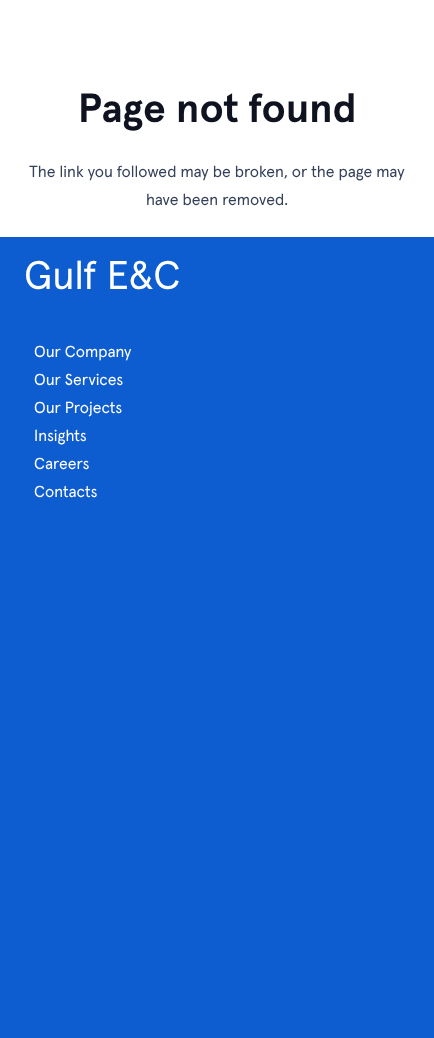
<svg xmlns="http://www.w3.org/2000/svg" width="434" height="1038">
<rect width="100%" height="100%" fill="#fff"/>
<text x="78" y="122" style="font-family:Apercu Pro;font-size:40.75px;font-weight:bold;fill:#0f131f">Page not found</text>
<text x="29" y="177" style="font-family:Apercu Pro;font-size:16px;fill:#35415b">The link you followed may be broken, or the page may</text>
<text x="146" y="205" style="font-family:Apercu Pro;font-size:16px;fill:#35415b">have been removed.</text>
<rect y="237" width="434" height="801" fill="#0e5dd0"/>
<text x="24" y="289" style="font-family:Apercu Pro;font-size:40px;fill:#fff">Gulf E&amp;C</text>
<text x="34" y="357" style="font-family:Apercu Pro;font-size:16px;fill:#fff">Our Company</text>
<text x="34" y="385" style="font-family:Apercu Pro;font-size:16px;fill:#fff">Our Services</text>
<text x="34" y="413" style="font-family:Apercu Pro;font-size:16px;fill:#fff">Our Projects</text>
<text x="34" y="441" style="font-family:Apercu Pro;font-size:16px;fill:#fff">Insights</text>
<text x="34" y="469" style="font-family:Apercu Pro;font-size:16px;fill:#fff">Careers</text>
<text x="34" y="497" style="font-family:Apercu Pro;font-size:16px;fill:#fff">Contacts</text>
</svg>
